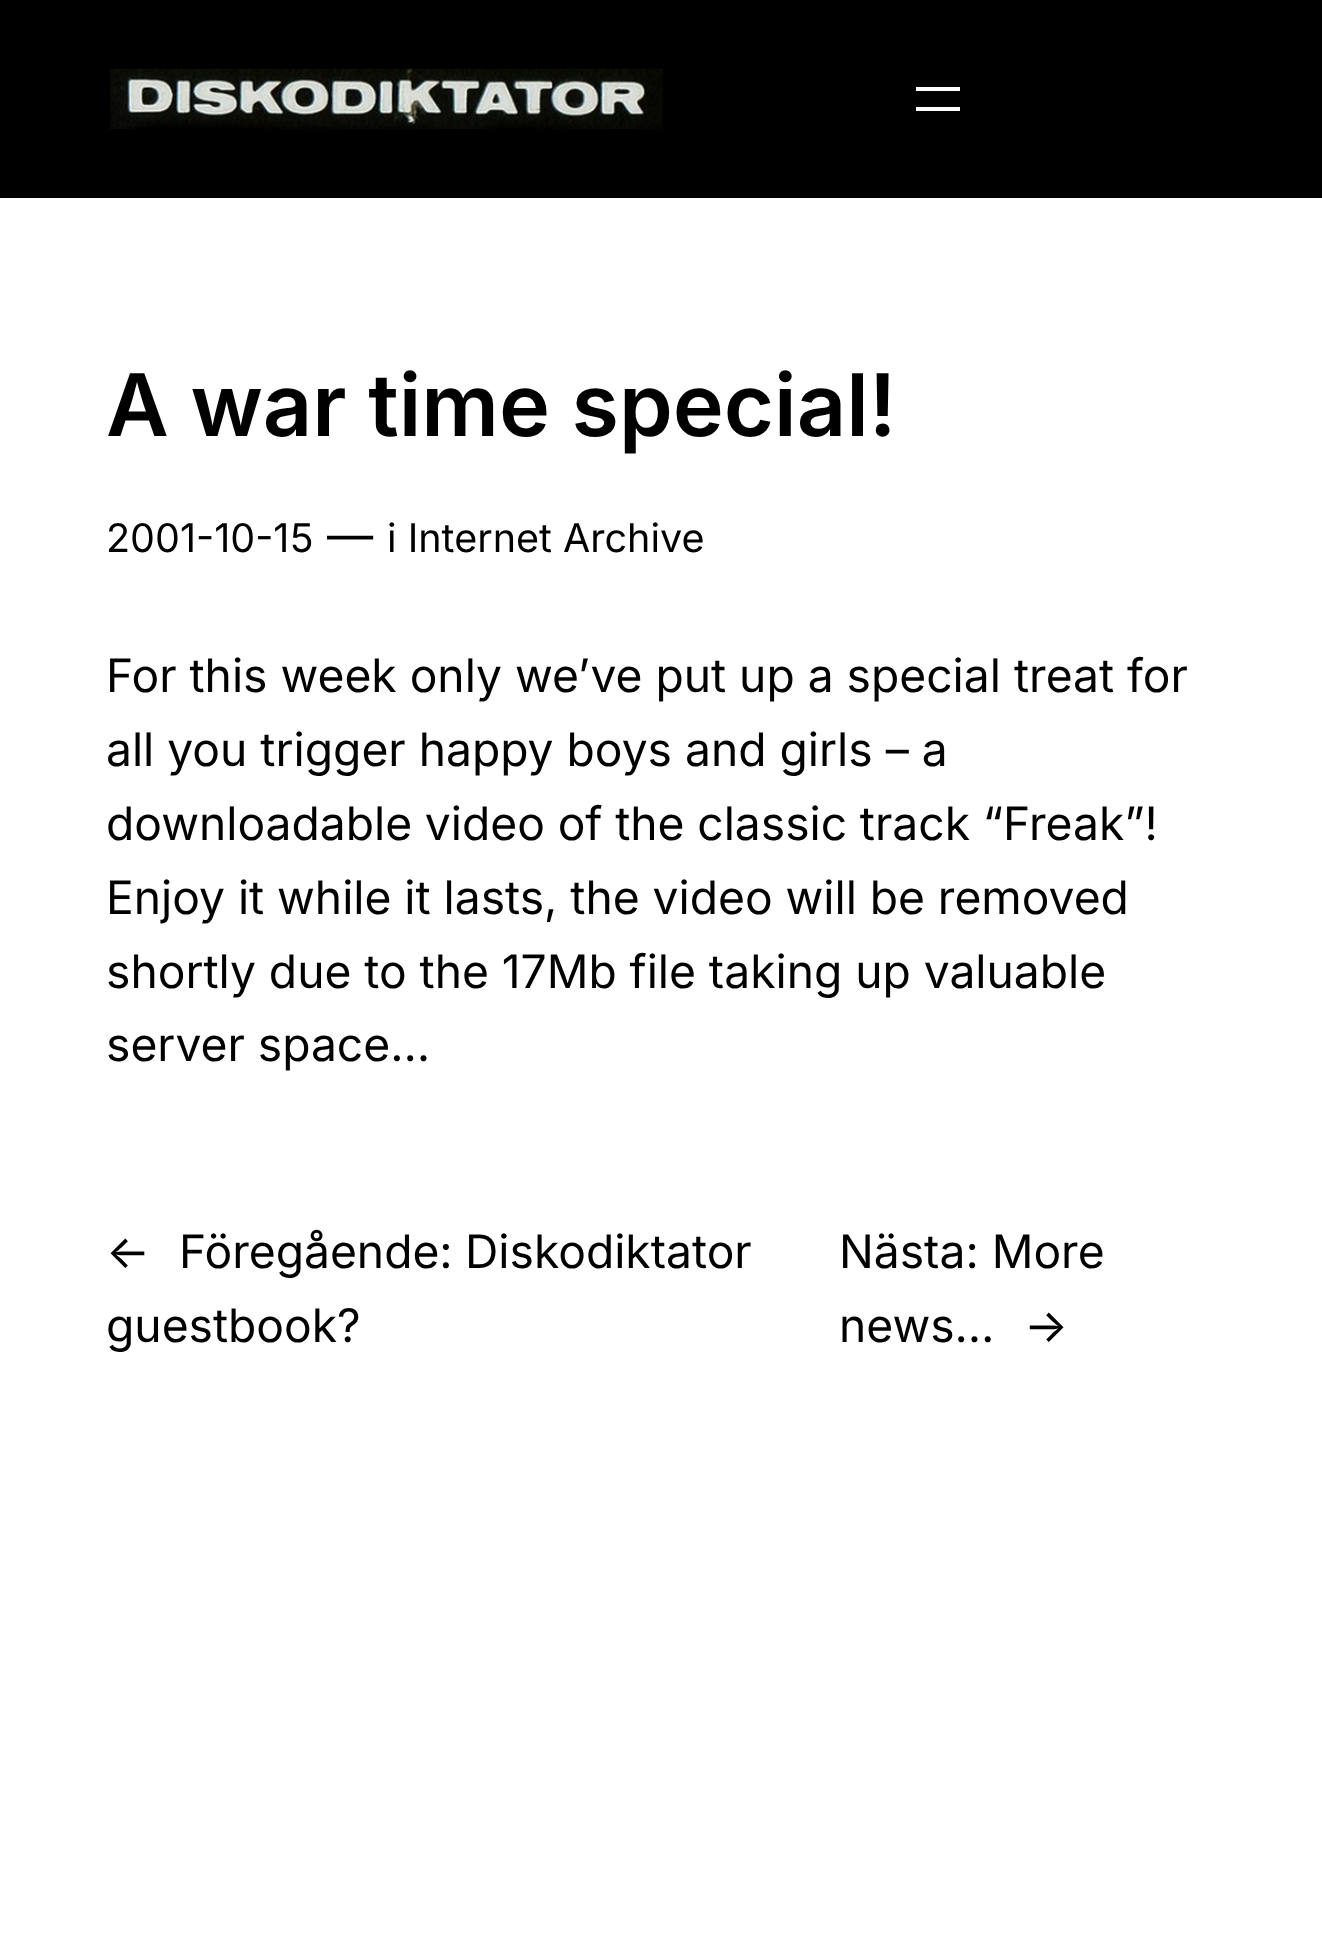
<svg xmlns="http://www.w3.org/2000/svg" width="1322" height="1934">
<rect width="100%" height="100%" fill="#fff"/>
<rect width="1322" height="198" fill="#000"/>
<image x="110" y="68" width="553" height="61" href="media/1.png"/>
<rect x="916" y="87" width="44" height="4" fill="#fff"/>
<rect x="916" y="107" width="44" height="4" fill="#fff"/>
<text x="106" y="436" style="font-family:Inter;font-size:86.25px;font-weight:600;fill:#000">A war time special!</text>
<text x="106" y="552" style="font-family:Inter;font-size:39.5px;fill:#000">2001-10-15</text>
<text x="327" y="552" style="font-family:Inter;font-size:46.2px;fill:#000">—</text>
<text x="387" y="552" style="font-family:Inter;font-size:39.5px;fill:#000">i Internet Archive</text>
<text x="106" y="692" style="font-family:Inter;font-size:46.2px;fill:#000">For this week only we’ve put up a special treat for</text>
<text x="106" y="766" style="font-family:Inter;font-size:46.2px;fill:#000">all you trigger happy boys and girls – a</text>
<text x="106" y="840" word-spacing="-0.25" style="font-family:Inter;font-size:46.2px;fill:#000">downloadable video of the classic track “Freak”!</text>
<text x="106" y="914" word-spacing="-0.1" style="font-family:Inter;font-size:46.2px;fill:#000">Enjoy it while it lasts, the video will be removed</text>
<text x="106" y="988" word-spacing="-0.1" style="font-family:Inter;font-size:46.2px;fill:#000">shortly due to the 17Mb file taking up valuable</text>
<text x="106" y="1061" style="font-family:Inter;font-size:46.2px;fill:#000">server space…</text>
<text x="106" y="1268" style="font-family:Inter;font-size:46.2px;fill:#000">←</text>
<text x="179" y="1268" style="font-family:Inter;font-size:46.2px;fill:#000">Föregående:</text>
<text x="465" y="1268" style="font-family:Inter;font-size:46.2px;fill:#000">Diskodiktator</text>
<text x="106" y="1342" style="font-family:Inter;font-size:46.2px;fill:#000">guestbook?</text>
<text x="839" y="1268" style="font-family:Inter;font-size:46.2px;fill:#000">Nästa: More</text>
<text x="839" y="1342" style="font-family:Inter;font-size:46.2px;fill:#000">news…</text>
<text x="1024" y="1342" style="font-family:Inter;font-size:46.2px;fill:#000">→</text>
</svg>
